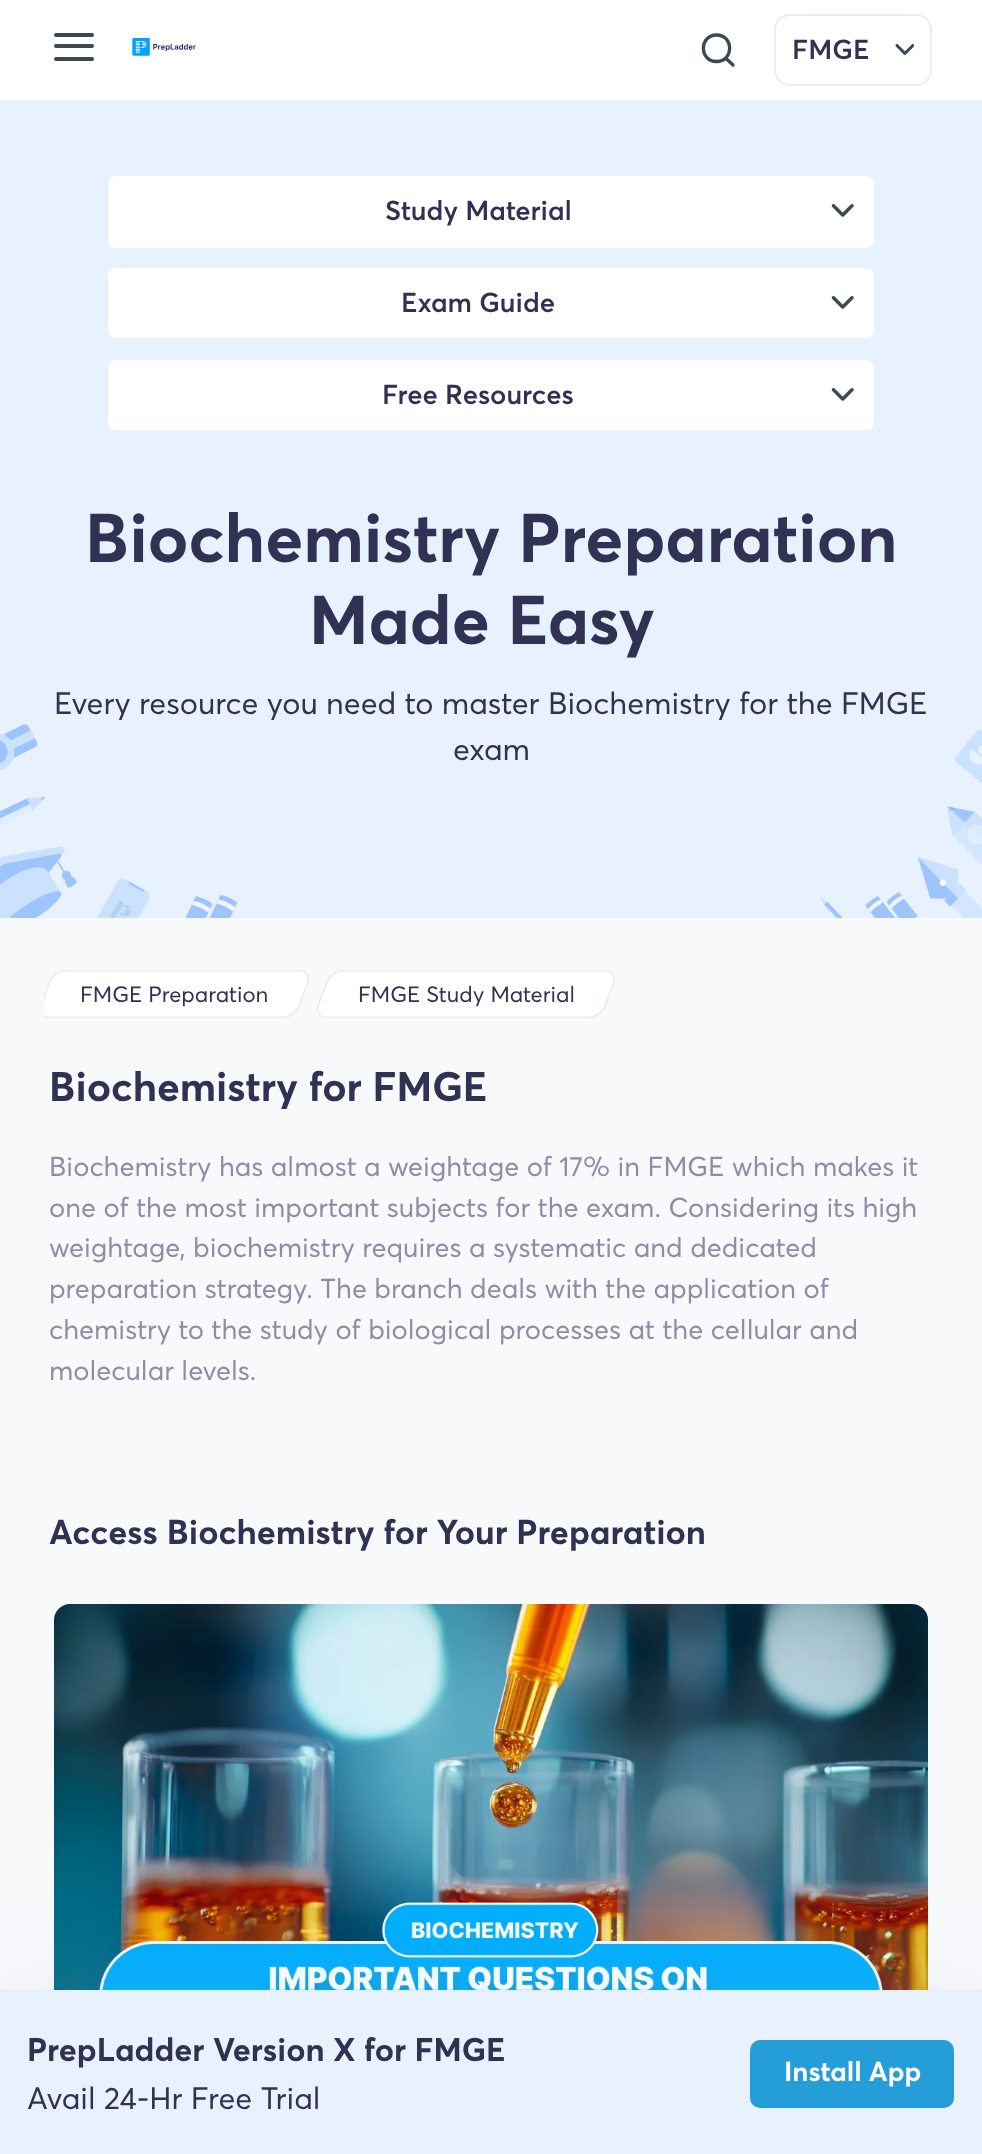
<svg xmlns="http://www.w3.org/2000/svg" width="982" height="2154">
<defs>
<clipPath id="clip1"><rect x="44" y="970" width="796" height="58"/></clipPath>
</defs>
<rect width="100%" height="100%" fill="#fff"/>
<path d="M56 46h36m-36-11h36m-36 24h36" fill="none" stroke="#3c4852" stroke-width="4" stroke-linecap="round" stroke-linejoin="round"/>
<image x="132" y="38" width="64" height="18" href="media/1.png"/>
<path d="M716.5 61.5c17.5 0 17.5-26.5 0-26.5c-17.5 0-17.5 26.5 0 26.5zm16.5 3.5l-7.5-7" fill="none" stroke="#3c4852" stroke-width="3.3" stroke-linecap="round" stroke-linejoin="round"/>
<rect x="775" y="15" width="156" height="70" rx="15" fill="none" stroke="#e9eef2" stroke-width="2"/>
<text x="792" y="59" style="font-family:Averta;font-size:27.2px;font-weight:600;fill:#303153">FMGE</text>
<image x="895" y="44" width="19" height="11" href="media/2.png"/>
<rect y="918" width="982" height="1072" fill="#f8f9fb"/>
<rect y="100" width="982" height="818" fill="#e8f2ff"/>
<rect x="108" y="176" width="766" height="72" rx="8" fill="#fff"/>
<text x="385" y="220" style="font-family:Averta;font-size:27.2px;font-weight:600;fill:#303153">Study Material</text>
<image x="831" y="204" width="23" height="13" href="media/3.png"/>
<rect x="108" y="268" width="766" height="70" rx="8" fill="#fff"/>
<text x="401" y="312" style="font-family:Averta;font-size:27.2px;font-weight:600;fill:#303153">Exam Guide</text>
<image x="831" y="296" width="23" height="13" href="media/3.png"/>
<rect x="108" y="360" width="766" height="70" rx="8" fill="#fff"/>
<text x="382" y="404" style="font-family:Averta;font-size:27.2px;font-weight:600;fill:#303153">Free Resources</text>
<image x="831" y="388" width="23" height="13" href="media/3.png"/>
<text x="85" y="562" style="font-family:Averta;font-size:68px;font-weight:bold;fill:#303153">Biochemistry Preparation</text>
<text x="309" y="644" style="font-family:Averta;font-size:68px;font-weight:bold;fill:#303153">Made Easy</text>
<text x="54" y="714" style="font-family:Averta;font-size:30.6px;fill:#303153">Every resource you need to master Biochemistry for the FMGE</text>
<text x="453" y="760" style="font-family:Averta;font-size:30.6px;fill:#303153">exam</text>
<image x="0" y="724" width="238" height="194" href="media/4.png"/>
<image x="821" y="730" width="161" height="188" href="media/5.png"/>
<g clip-path="url(#clip1)">
<path d="M67 969h233c7 0 11 6 9 14l-9 22c-2 8-11 14-18 14h-233c-8 0-12-6-9-14l8-22c3-8 11-14 19-14z" fill="#fff"/>
<path d="M66.5 970.5h233c7 0 10.5 5.5 8 12.5l-8 22c-2.5 7-10 12.5-17 12.5h-233.5c-7 0-10.5-5.5-8-12.5l8-22c2.5-7 10.5-12.5 17.5-12.5z" fill="none" stroke="#e9eef2" stroke-width="2"/>
</g>
<text x="80" y="1002" style="font-family:Averta;font-size:22px;fill:#303153">FMGE Preparation</text>
<g clip-path="url(#clip1)">
<path d="M344 969h262c7 0 11 6 9 14l-9 22c-2 8-11 14-18 14h-262c-7 0-11-6-9-14l9-22c2-8 11-14 18-14z" fill="#fff"/>
<path d="M343.5 970.5h262c7 0 10.5 5.5 8 12.5l-8 22c-2.5 7-10 12.5-17 12.5h-262c-7 0-10.5-5.5-8-12.5l8-22c2.5-7 10-12.5 17-12.5z" fill="none" stroke="#e9eef2" stroke-width="2"/>
</g>
<text x="358" y="1002" style="font-family:Averta;font-size:22px;fill:#303153">FMGE Study Material</text>
<text x="49" y="1101" style="font-family:Averta;font-size:40.75px;font-weight:bold;fill:#303153">Biochemistry for FMGE</text>
<text x="49" y="1176" style="font-family:Averta;font-size:27.2px;fill:#8e8da8">Biochemistry has almost a weightage of 17% in FMGE which makes it</text>
<text x="49" y="1217" style="font-family:Averta;font-size:27.2px;fill:#8e8da8">one of the most important subjects for the exam. Considering its high</text>
<text x="49" y="1257" style="font-family:Averta;font-size:27.2px;fill:#8e8da8">weightage, biochemistry requires a systematic and dedicated</text>
<text x="49" y="1298" style="font-family:Averta;font-size:27.2px;fill:#8e8da8">preparation strategy. The branch deals with the application of</text>
<text x="49" y="1339" style="font-family:Averta;font-size:27.2px;fill:#8e8da8">chemistry to the study of biological processes at the cellular and</text>
<text x="49" y="1380" style="font-family:Averta;font-size:27.2px;fill:#8e8da8">molecular levels.</text>
<text x="49" y="1544" style="font-family:Averta;font-size:34px;font-weight:bold;fill:#303153">Access Biochemistry for Your Preparation</text>
<rect x="54" y="1604" width="874" height="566" rx="16" fill="#fff"/>
<image x="54" y="1604" width="874" height="386" href="media/6.png"/>
<rect y="2024" width="982" height="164" fill="#9aafcb59" filter="blur(55px)"/>
<rect y="1992" width="982" height="162" fill="#e8f2ff"/>
<rect y="1990" width="982" height="2" fill="#e5eefa"/>
<text x="27" y="2061" style="font-family:Averta;font-size:32.25px;font-weight:bold;fill:#303153">PrepLadder Version X for FMGE</text>
<text x="27" y="2109" style="font-family:Averta;font-size:30.6px;fill:#303153">Avail 24-Hr Free Trial</text>
<rect x="750" y="2040" width="204" height="68" rx="10" fill="#249dd8"/>
<text x="784" y="2081" style="font-family:Averta;font-size:27.2px;font-weight:bold;fill:#fff">Install App</text>
</svg>
